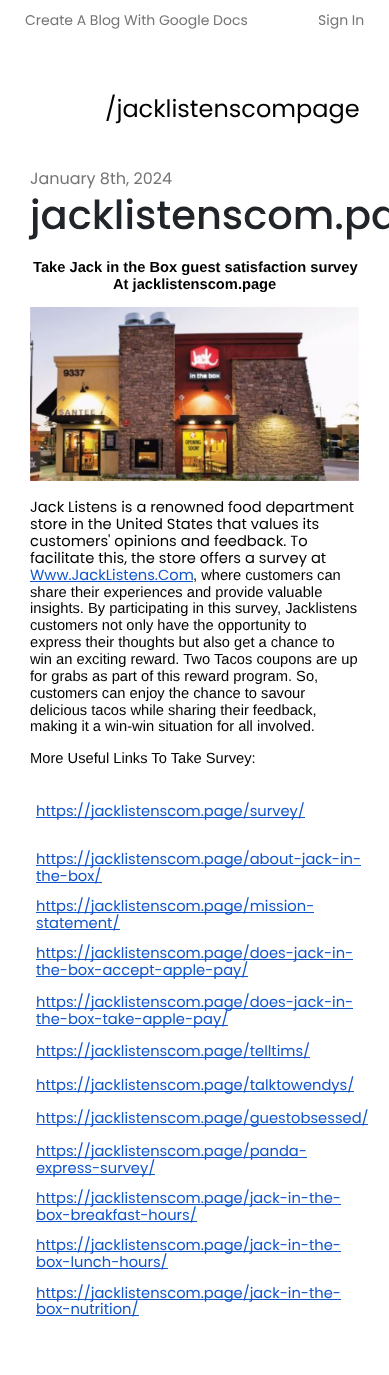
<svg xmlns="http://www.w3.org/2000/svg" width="389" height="1375">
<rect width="100%" height="100%" fill="#fff"/>
<text x="25" y="25" style="font-family:Poppins;font-size:14px;fill:#757575">Create A Blog With Google Docs</text>
<text x="318" y="25" style="font-family:Poppins;font-size:14px;fill:#757575">Sign In</text>
<text x="105" y="117" style="font-family:Poppins;font-size:24px;fill:#000">/jacklistenscompage</text>
<text x="30" y="184" style="font-family:Poppins;font-size:16px;fill:#757575">January 8th, 2024</text>
<text x="30" y="229" style="font-family:Poppins;font-size:40px;font-weight:500;fill:#212529">jacklistenscom.pa</text>
<text x="33" y="272" style="font-family:Liberation Sans;font-size:14.7px;font-weight:bold;fill:#000">Take Jack in the Box guest satisfaction survey</text>
<text x="113" y="289" style="font-family:Liberation Sans;font-size:14.7px;font-weight:bold;fill:#000">At jacklistenscom.page</text>
<image x="30" y="307" width="329" height="174" href="media/1.png"/>
<text x="30" y="512" style="font-family:Poppins;font-size:14.7px;fill:#000">Jack Listens is a renowned food department</text>
<text x="30" y="529" style="font-family:Poppins;font-size:14.7px;fill:#000">store in the United States that values its</text>
<text x="30" y="546" style="font-family:Poppins;font-size:14.7px;fill:#000">customers' opinions and feedback. To</text>
<text x="30" y="563" style="font-family:Poppins;font-size:14.7px;fill:#000">facilitate this, the store offers a survey at</text>
<text x="30" y="580" style="font-family:Poppins;font-size:14.7px;fill:#15c">Www.JackListens.Com</text>
<rect x="30" y="581" width="163" height="1" fill="#15c"/>
<text x="193" y="580" style="font-family:Liberation Sans;font-size:14.7px;fill:#000">, where customers can</text>
<text x="30" y="597" style="font-family:Liberation Sans;font-size:14.7px;fill:#000">share their experiences and provide valuable</text>
<text x="30" y="613" style="font-family:Liberation Sans;font-size:14.7px;fill:#000">insights. By participating in this survey, Jacklistens</text>
<text x="30" y="630" style="font-family:Liberation Sans;font-size:14.7px;fill:#000">customers not only have the opportunity to</text>
<text x="30" y="647" style="font-family:Liberation Sans;font-size:14.7px;fill:#000">express their thoughts but also get a chance to</text>
<text x="30" y="664" style="font-family:Liberation Sans;font-size:14.7px;fill:#000">win an exciting reward. Two Tacos coupons are up</text>
<text x="30" y="681" style="font-family:Liberation Sans;font-size:14.7px;fill:#000">for grabs as part of this reward program. So,</text>
<text x="30" y="698" style="font-family:Liberation Sans;font-size:14.7px;fill:#000">customers can enjoy the chance to savour</text>
<text x="30" y="715" style="font-family:Liberation Sans;font-size:14.7px;fill:#000">delicious tacos while sharing their feedback,</text>
<text x="30" y="731" style="font-family:Liberation Sans;font-size:14.7px;fill:#000">making it a win-win situation for all involved.</text>
<text x="30" y="763" style="font-family:Liberation Sans;font-size:14.7px;fill:#000">More Useful Links To Take Survey:</text>
<rect x="36" y="817" width="269" height="1" fill="#15c"/>
<text x="36" y="816" style="font-family:Poppins;font-size:14.7px;fill:#15c">https://jacklistenscom.page/survey/</text>
<rect x="36" y="865" width="325" height="1" fill="#15c"/>
<text x="36" y="864" style="font-family:Poppins;font-size:14.7px;fill:#15c">https://jacklistenscom.page/about-jack-in-</text>
<rect x="36" y="882" width="66" height="1" fill="#15c"/>
<text x="36" y="881" style="font-family:Poppins;font-size:14.7px;fill:#15c">the-box/</text>
<rect x="36" y="912" width="278" height="1" fill="#15c"/>
<text x="36" y="911" style="font-family:Poppins;font-size:14.7px;fill:#15c">https://jacklistenscom.page/mission-</text>
<rect x="36" y="929" width="84" height="1" fill="#15c"/>
<text x="36" y="928" style="font-family:Poppins;font-size:14.7px;fill:#15c">statement/</text>
<rect x="36" y="959" width="317" height="1" fill="#15c"/>
<text x="36" y="958" style="font-family:Poppins;font-size:14.7px;fill:#15c">https://jacklistenscom.page/does-jack-in-</text>
<rect x="36" y="976" width="212" height="1" fill="#15c"/>
<text x="36" y="975" style="font-family:Poppins;font-size:14.7px;fill:#15c">the-box-accept-apple-pay/</text>
<rect x="36" y="1008" width="317" height="1" fill="#15c"/>
<text x="36" y="1007" style="font-family:Poppins;font-size:14.7px;fill:#15c">https://jacklistenscom.page/does-jack-in-</text>
<rect x="36" y="1025" width="192" height="1" fill="#15c"/>
<text x="36" y="1024" style="font-family:Poppins;font-size:14.7px;fill:#15c">the-box-take-apple-pay/</text>
<rect x="36" y="1057" width="274" height="1" fill="#15c"/>
<text x="36" y="1056" style="font-family:Poppins;font-size:14.7px;fill:#15c">https://jacklistenscom.page/telltims/</text>
<rect x="36" y="1091" width="318" height="1" fill="#15c"/>
<text x="36" y="1090" style="font-family:Poppins;font-size:14.7px;fill:#15c">https://jacklistenscom.page/talktowendys/</text>
<rect x="36" y="1124" width="332" height="1" fill="#15c"/>
<text x="36" y="1123" style="font-family:Poppins;font-size:14.7px;fill:#15c">https://jacklistenscom.page/guestobsessed/</text>
<rect x="36" y="1157" width="271" height="1" fill="#15c"/>
<text x="36" y="1156" style="font-family:Poppins;font-size:14.7px;fill:#15c">https://jacklistenscom.page/panda-</text>
<rect x="36" y="1174" width="119" height="1" fill="#15c"/>
<text x="36" y="1173" style="font-family:Poppins;font-size:14.7px;fill:#15c">express-survey/</text>
<rect x="36" y="1204" width="305" height="1" fill="#15c"/>
<text x="36" y="1203" style="font-family:Poppins;font-size:14.7px;fill:#15c">https://jacklistenscom.page/jack-in-the-</text>
<rect x="36" y="1221" width="161" height="1" fill="#15c"/>
<text x="36" y="1220" style="font-family:Poppins;font-size:14.7px;fill:#15c">box-breakfast-hours/</text>
<rect x="36" y="1251" width="305" height="1" fill="#15c"/>
<text x="36" y="1250" style="font-family:Poppins;font-size:14.7px;fill:#15c">https://jacklistenscom.page/jack-in-the-</text>
<rect x="36" y="1268" width="132" height="1" fill="#15c"/>
<text x="36" y="1267" style="font-family:Poppins;font-size:14.7px;fill:#15c">box-lunch-hours/</text>
<rect x="36" y="1299" width="305" height="1" fill="#15c"/>
<text x="36" y="1298" style="font-family:Poppins;font-size:14.7px;fill:#15c">https://jacklistenscom.page/jack-in-the-</text>
<rect x="36" y="1315" width="103" height="1" fill="#15c"/>
<text x="36" y="1314" style="font-family:Poppins;font-size:14.7px;fill:#15c">box-nutrition/</text>
</svg>
